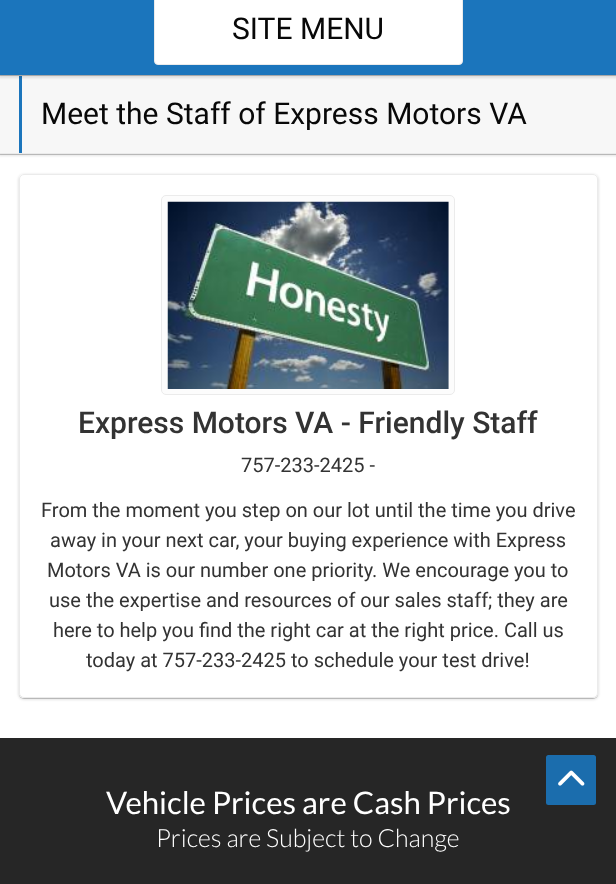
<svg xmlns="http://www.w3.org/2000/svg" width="616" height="884">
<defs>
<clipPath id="clip1"><path d="M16 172h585v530h-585zm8 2h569c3 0 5 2 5 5v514c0 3-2 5-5 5h-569c-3 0-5-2-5-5v-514c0-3 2-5 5-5z" clip-rule="evenodd"/></clipPath>
<clipPath id="clip2"><path d="M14 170h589v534h-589zm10 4h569c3 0 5 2 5 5v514c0 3-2 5-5 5h-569c-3 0-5-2-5-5v-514c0-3 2-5 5-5z" clip-rule="evenodd"/></clipPath>
</defs>
<rect width="100%" height="100%" fill="#fff"/>
<rect y="76" width="616" height="79" fill="#00000033" filter="blur(0.5px)"/>
<rect x="-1" y="75" width="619" height="81" fill="#0000001a" filter="blur(1px)"/>
<rect y="76" width="616" height="77" fill="#f7f7f7"/>
<rect y="75" width="616" height="1" fill="#ebebeb"/>
<rect x="19" y="76" width="3" height="77" fill="#1b75bc"/>
<rect y="-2" width="616" height="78" fill="#00000033" filter="blur(0.5px)"/>
<rect x="-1" y="-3" width="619" height="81" fill="#0000001a" filter="blur(1px)"/>
<rect width="616" height="75" fill="#1b75bc"/>
<rect x="154.5" y="-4.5" width="308" height="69" rx="3.5" fill="#fff" stroke="#ebebeb"/>
<text x="232" y="39" style="font-family:Roboto;font-size:30px;fill:#080808">SITE MENU</text>
<rect y="153" width="616" height="1" fill="#ebebeb"/>
<text x="41" y="124" style="font-family:Roboto;font-size:30px;fill:#080808">Meet the Staff of Express Motors VA</text>
<g clip-path="url(#clip1)">
<rect x="19" y="175" width="579" height="524" rx="5" fill="#00000033" filter="blur(0.5px)"/>
</g>
<g clip-path="url(#clip2)">
<rect x="18" y="174" width="581" height="526" rx="6" fill="#0000001a" filter="blur(1px)"/>
</g>
<rect x="19.5" y="174.5" width="578" height="523" rx="4.5" fill="#ffffff99" stroke="#ebebeb"/>
<rect x="161.5" y="195.5" width="293" height="199" rx="4.5" fill="#fcfcfc" stroke="#ebebeb"/>
<image x="167" y="201" width="282" height="188" href="media/1.png"/>
<text x="78" y="433" style="font-family:Roboto;font-size:30px;font-weight:500;fill:#333">Express Motors VA - Friendly Staff</text>
<text x="241" y="472" style="font-family:Roboto;font-size:20px;fill:#333">757-233-2425 -</text>
<text x="41" y="517" style="font-family:Roboto;font-size:20px;fill:#333">From the moment you step on our lot until the time you drive</text>
<text x="50" y="547" style="font-family:Roboto;font-size:20px;fill:#333">away in your next car, your buying experience with Express</text>
<text x="47" y="577" style="font-family:Roboto;font-size:20px;fill:#333">Motors VA is our number one priority. We encourage you to</text>
<text x="49" y="607" style="font-family:Roboto;font-size:20px;fill:#333">use the expertise and resources of our sales staff; they are</text>
<text x="53" y="637" style="font-family:Roboto;font-size:20px;fill:#333">here to help you find the right car at the right price. Call us</text>
<text x="86" y="667" style="font-family:Roboto;font-size:20px;fill:#333">today at 757-233-2425 to schedule your test drive!</text>
<rect y="738" width="616" height="146" fill="#262626"/>
<rect x="546" y="755" width="50" height="50" rx="2.5" fill="#1b75bce6"/>
<image x="558" y="770" width="27" height="16" href="media/2.png"/>
<text x="106" y="814" style="font-family:Lato;font-size:31.2px;fill:#fff">Vehicle Prices are Cash Prices</text>
<text x="156" y="847" style="font-family:Lato;font-size:25px;font-weight:300;fill:#fff">Prices are Subject to Change</text>
</svg>
